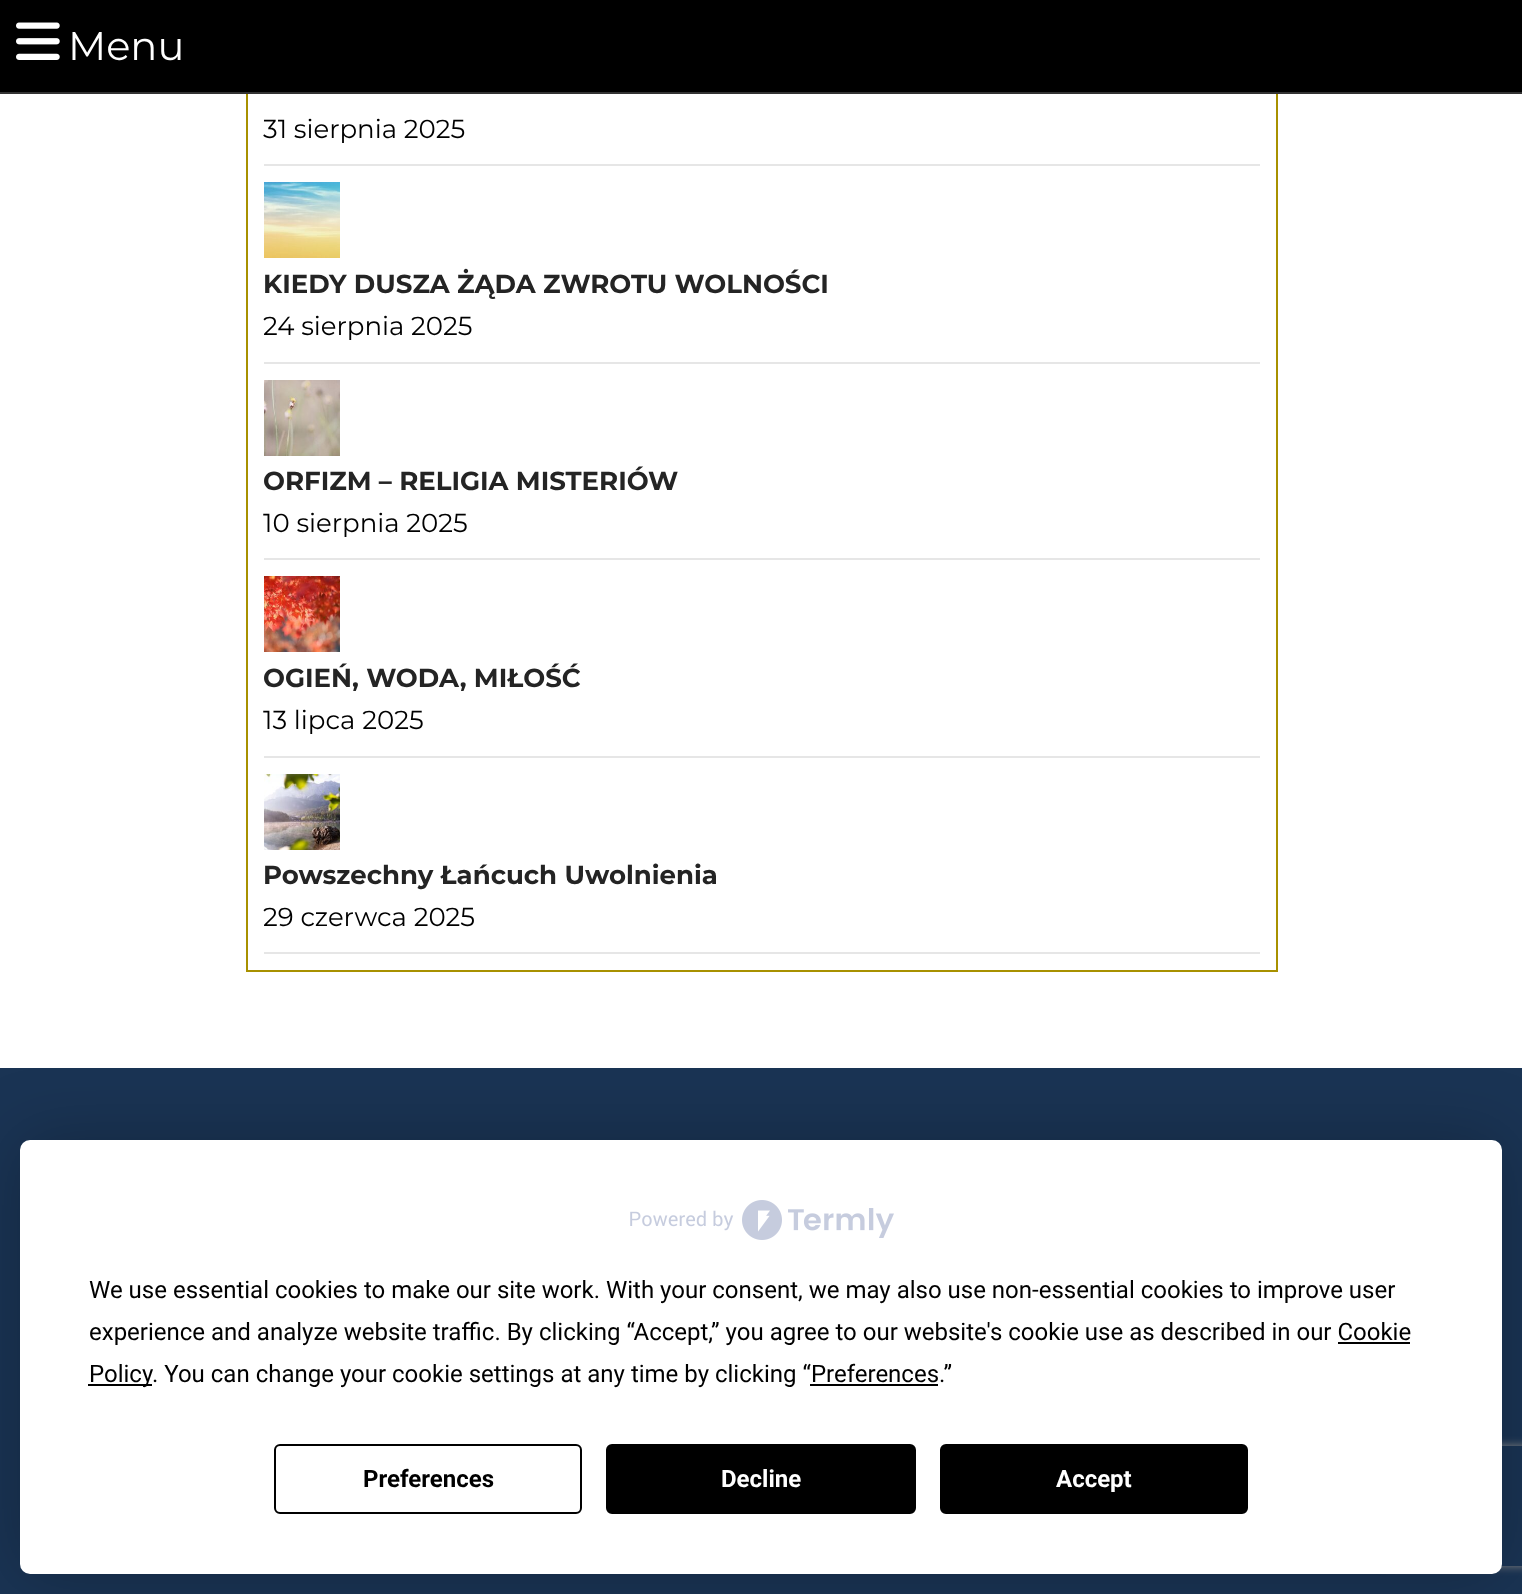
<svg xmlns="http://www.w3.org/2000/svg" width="1522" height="1594">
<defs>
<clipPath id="clip1"><path d="M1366 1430h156v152h-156zm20 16h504c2 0 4 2 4 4v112c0 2-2 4-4 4h-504c-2 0-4-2-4-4v-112c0-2 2-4 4-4z" clip-rule="evenodd"/></clipPath>
</defs>
<rect width="100%" height="100%" fill="#fff"/>
<rect x="247" y="-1" width="1030" height="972" fill="none" stroke="#a89100" stroke-width="2"/>
<rect width="1522" height="92" fill="#000"/>
<rect y="92" width="1522" height="2" fill="#333"/>
<image x="16" y="22" width="44" height="38" href="media/1.png"/>
<text x="68" y="60" style="font-family:Montserrat;font-size:40px;fill:#fff">Menu</text>
<rect x="264" y="164" width="996" height="2" fill="#e6e6e6"/>
<text x="263" y="138" style="font-family:Montserrat;font-size:26px;fill:#000">31 sierpnia 2025</text>
<rect x="264" y="362" width="996" height="2" fill="#e6e6e6"/>
<image x="264" y="182" width="76" height="76" href="media/2.png"/>
<text x="263" y="293" style="font-family:Montserrat;font-size:26px;font-weight:bold;fill:#242424">KIEDY DUSZA ŻĄDA ZWROTU WOLNOŚCI</text>
<text x="263" y="335" style="font-family:Montserrat;font-size:26px;fill:#000">24 sierpnia 2025</text>
<rect x="264" y="558" width="996" height="2" fill="#e6e6e6"/>
<image x="264" y="380" width="76" height="76" href="media/3.png"/>
<text x="263" y="490" style="font-family:Montserrat;font-size:26px;font-weight:bold;fill:#242424">ORFIZM – RELIGIA MISTERIÓW</text>
<text x="263" y="532" style="font-family:Montserrat;font-size:26px;fill:#000">10 sierpnia 2025</text>
<rect x="264" y="756" width="996" height="2" fill="#e6e6e6"/>
<image x="264" y="576" width="76" height="76" href="media/4.png"/>
<text x="263" y="687" style="font-family:Montserrat;font-size:26px;font-weight:bold;fill:#242424">OGIEŃ, WODA, MIŁOŚĆ</text>
<text x="263" y="729" style="font-family:Montserrat;font-size:26px;fill:#000">13 lipca 2025</text>
<rect x="264" y="952" width="996" height="2" fill="#e6e6e6"/>
<image x="264" y="774" width="76" height="76" href="media/5.png"/>
<text x="263" y="884" style="font-family:Montserrat;font-size:26px;font-weight:bold;fill:#242424">Powszechny Łańcuch Uwolnienia</text>
<text x="263" y="926" style="font-family:Montserrat;font-size:26px;fill:#000">29 czerwca 2025</text>
<rect y="1068" width="1522" height="526" fill="#1a3454"/>
<rect x="20" y="1140" width="1482" height="434" rx="10" fill="#00000040" filter="blur(35px)"/>
<g clip-path="url(#clip1)">
<rect x="1382" y="1446" width="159" height="120" rx="4" fill="#808080" filter="blur(5px)"/>
</g>
<rect x="20" y="1140" width="1482" height="434" rx="10" fill="#fff"/>
<image x="630" y="1200" width="264" height="40" href="media/6.png"/>
<text x="89" y="1298" style="font-family:Roboto;font-size:24px;fill:#000">We use essential cookies to make our site work. With your consent, we may also use non-essential cookies to improve user</text>
<text x="89" y="1340" style="font-family:Roboto;font-size:24px;fill:#000">experience and analyze website traffic. By clicking “Accept,” you agree to our website's cookie use as described in our Cookie</text>
<rect x="88" y="1384" width="64" height="2" fill="#000"/>
<text x="89" y="1382" style="font-family:Roboto;font-size:24px;fill:#000">Policy</text>
<rect x="1338" y="1342" width="72" height="2" fill="#000"/>
<text x="152" y="1382" style="font-family:Roboto;font-size:24px;fill:#000">. You can change your cookie settings at any time by clicking “Preferences.”</text>
<rect x="810" y="1384" width="128" height="2" fill="#000"/>
<rect x="275" y="1445" width="306" height="68" rx="5" fill="none" stroke="#000" stroke-width="2"/>
<text x="363" y="1487" style="font-family:Roboto;font-size:24px;font-weight:bold;fill:#000">Preferences</text>
<rect x="607" y="1445" width="308" height="68" rx="5" fill="#000" stroke="#000" stroke-width="2"/>
<text x="721" y="1487" style="font-family:Roboto;font-size:24px;font-weight:bold;fill:#fff">Decline</text>
<rect x="941" y="1445" width="306" height="68" rx="5" fill="#000" stroke="#000" stroke-width="2"/>
<text x="1056" y="1487" style="font-family:Roboto;font-size:24px;font-weight:bold;fill:#fff">Accept</text>
</svg>
